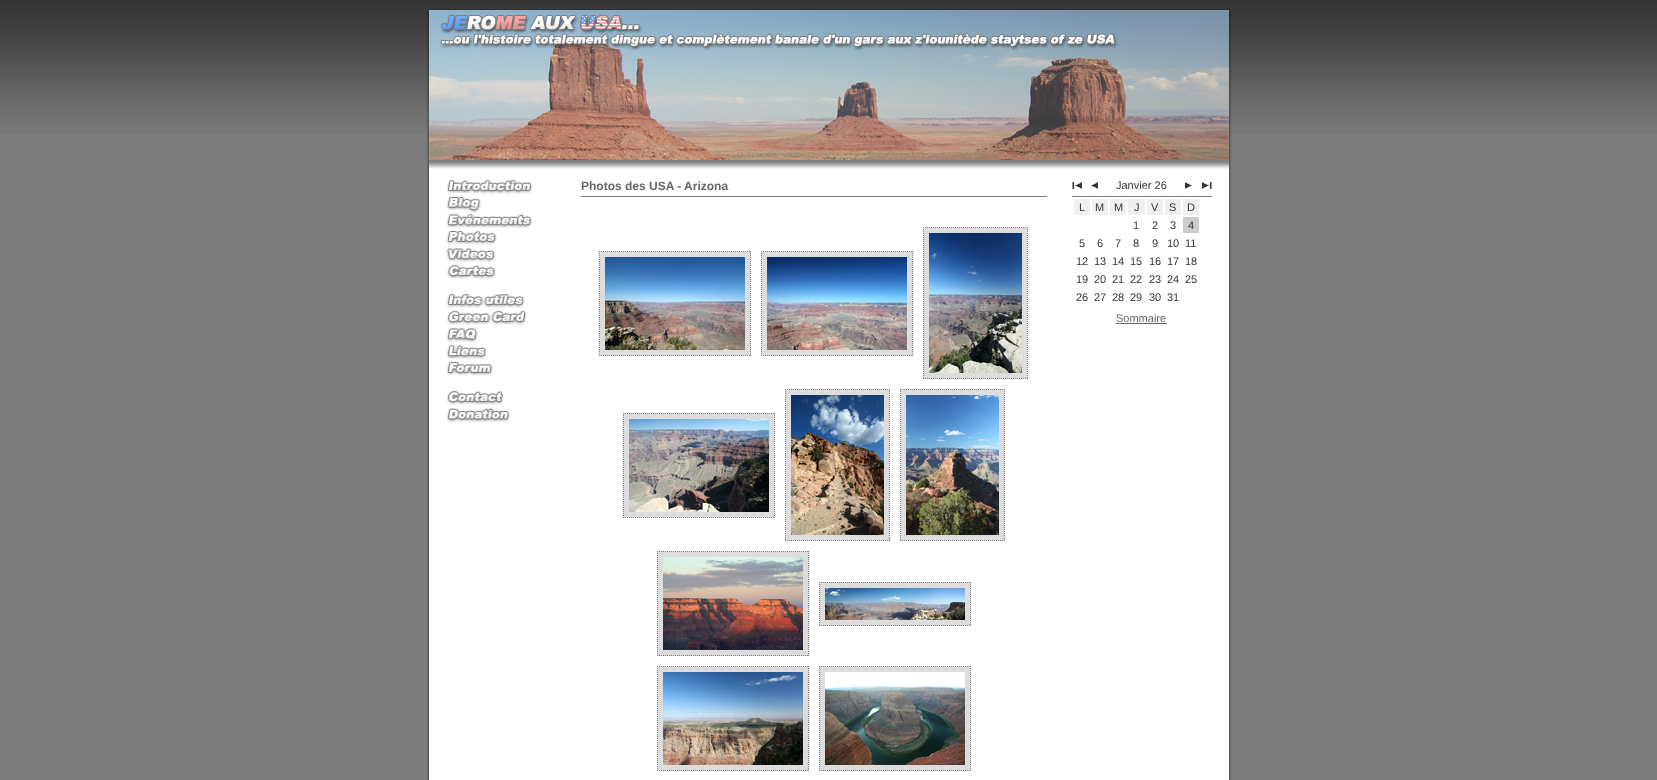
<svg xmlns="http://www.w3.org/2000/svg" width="1657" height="780">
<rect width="100%" height="100%" fill="#fff"/>
<image x="0" y="0" width="1657" height="8" href="media/1.png"/>
<rect y="134" width="1657" height="646" fill="#7d7d7d"/>
<image x="0" y="8" width="1657" height="126" href="media/2.png"/>
<image x="426" y="169" width="806" height="611" href="media/3.png"/>
<image x="426" y="8" width="806" height="2" href="media/4.png"/>
<image x="426" y="10" width="806" height="159" href="media/5.png"/>
<image x="446" y="179" width="87" height="15" href="media/6.png"/>
<image x="446" y="196" width="35" height="17" href="media/7.png"/>
<image x="446" y="213" width="87" height="15" href="media/8.png"/>
<image x="446" y="230" width="51" height="15" href="media/9.png"/>
<image x="446" y="248" width="50" height="14" href="media/10.png"/>
<image x="447" y="264" width="49" height="15" href="media/11.png"/>
<image x="446" y="293" width="79" height="15" href="media/12.png"/>
<image x="446" y="310" width="81" height="15" href="media/13.png"/>
<image x="446" y="327" width="32" height="16" href="media/14.png"/>
<image x="446" y="345" width="41" height="14" href="media/15.png"/>
<image x="446" y="362" width="47" height="14" href="media/16.png"/>
<image x="446" y="390" width="58" height="15" href="media/17.png"/>
<image x="446" y="408" width="64" height="15" href="media/18.png"/>
<rect x="581" y="196" width="466" height="1" fill="#7d7d7d"/>
<text x="581" y="190" style="font-family:Liberation Sans;font-size:12px;font-weight:bold;fill:#666">Photos des USA - Arizona</text>
<rect x="923" y="227" width="105" height="152" fill="#ddd"/>
<path d="M923 227.5h105" fill="none" stroke="#808080" stroke-dasharray="1 1"/>
<rect x="599" y="251" width="152" height="105" fill="#ddd"/>
<path d="M923.5 227v152" fill="none" stroke="#808080" stroke-dasharray="1 1"/>
<image x="929" y="233" width="93" height="140" href="media/19.png"/>
<path d="M1027.5 227v152" fill="none" stroke="#808080" stroke-dasharray="1 1"/>
<path d="M599 251.5h152" fill="none" stroke="#808080" stroke-dasharray="1 1"/>
<path d="M599 355.5h152" fill="none" stroke="#808080" stroke-dasharray="1 1"/>
<path d="M599.5 251v105" fill="none" stroke="#808080" stroke-dasharray="1 1"/>
<path d="M750.5 251v105" fill="none" stroke="#808080" stroke-dasharray="1 1"/>
<rect x="761" y="251" width="152" height="105" fill="#ddd"/>
<path d="M761 251.5h152" fill="none" stroke="#808080" stroke-dasharray="1 1"/>
<image x="605" y="257" width="140" height="93" href="media/20.png"/>
<path d="M761 355.5h152" fill="none" stroke="#808080" stroke-dasharray="1 1"/>
<path d="M761.5 251v105" fill="none" stroke="#808080" stroke-dasharray="1 1"/>
<image x="767" y="257" width="140" height="93" href="media/21.png"/>
<path d="M912.5 251v105" fill="none" stroke="#808080" stroke-dasharray="1 1"/>
<path d="M923 378.5h105" fill="none" stroke="#808080" stroke-dasharray="1 1"/>
<rect x="785" y="389" width="105" height="152" fill="#ddd"/>
<path d="M785 389.5h105" fill="none" stroke="#808080" stroke-dasharray="1 1"/>
<path d="M785.5 389v152" fill="none" stroke="#808080" stroke-dasharray="1 1"/>
<path d="M889.5 389v152" fill="none" stroke="#808080" stroke-dasharray="1 1"/>
<rect x="900" y="389" width="105" height="152" fill="#ddd"/>
<path d="M900 389.5h105" fill="none" stroke="#808080" stroke-dasharray="1 1"/>
<rect x="623" y="413" width="152" height="105" fill="#ddd"/>
<image x="791" y="395" width="93" height="140" href="media/22.png"/>
<path d="M900.5 389v152" fill="none" stroke="#808080" stroke-dasharray="1 1"/>
<image x="906" y="395" width="93" height="140" href="media/23.png"/>
<path d="M1004.5 389v152" fill="none" stroke="#808080" stroke-dasharray="1 1"/>
<path d="M623 413.5h152" fill="none" stroke="#808080" stroke-dasharray="1 1"/>
<path d="M623 517.5h152" fill="none" stroke="#808080" stroke-dasharray="1 1"/>
<path d="M623.5 413v105" fill="none" stroke="#808080" stroke-dasharray="1 1"/>
<image x="629" y="419" width="140" height="93" href="media/24.png"/>
<path d="M774.5 413v105" fill="none" stroke="#808080" stroke-dasharray="1 1"/>
<path d="M785 540.5h105" fill="none" stroke="#808080" stroke-dasharray="1 1"/>
<path d="M900 540.5h105" fill="none" stroke="#808080" stroke-dasharray="1 1"/>
<rect x="657" y="551" width="152" height="105" fill="#ddd"/>
<path d="M657 551.5h152" fill="none" stroke="#808080" stroke-dasharray="1 1"/>
<path d="M657 655.5h152" fill="none" stroke="#808080" stroke-dasharray="1 1"/>
<path d="M657.5 551v105" fill="none" stroke="#808080" stroke-dasharray="1 1"/>
<image x="663" y="557" width="140" height="93" href="media/25.png"/>
<path d="M808.5 551v105" fill="none" stroke="#808080" stroke-dasharray="1 1"/>
<rect x="819" y="582" width="152" height="44" fill="#ddd"/>
<path d="M819 582.5h152" fill="none" stroke="#808080" stroke-dasharray="1 1"/>
<path d="M819.5 582v44" fill="none" stroke="#808080" stroke-dasharray="1 1"/>
<image x="825" y="588" width="140" height="32" href="media/26.png"/>
<path d="M970.5 582v44" fill="none" stroke="#808080" stroke-dasharray="1 1"/>
<path d="M819 625.5h152" fill="none" stroke="#808080" stroke-dasharray="1 1"/>
<rect x="657" y="666" width="152" height="105" fill="#ddd"/>
<path d="M657 666.5h152" fill="none" stroke="#808080" stroke-dasharray="1 1"/>
<path d="M657 770.5h152" fill="none" stroke="#808080" stroke-dasharray="1 1"/>
<path d="M657.5 666v105" fill="none" stroke="#808080" stroke-dasharray="1 1"/>
<path d="M808.5 666v105" fill="none" stroke="#808080" stroke-dasharray="1 1"/>
<rect x="819" y="666" width="152" height="105" fill="#ddd"/>
<path d="M819 666.5h152" fill="none" stroke="#808080" stroke-dasharray="1 1"/>
<image x="663" y="672" width="140" height="93" href="media/27.png"/>
<path d="M819 770.5h152" fill="none" stroke="#808080" stroke-dasharray="1 1"/>
<path d="M819.5 666v105" fill="none" stroke="#808080" stroke-dasharray="1 1"/>
<image x="825" y="672" width="140" height="93" href="media/28.png"/>
<path d="M970.5 666v105" fill="none" stroke="#808080" stroke-dasharray="1 1"/>
<rect x="1072" y="196" width="140" height="1" fill="#7d7d7d"/>
<image x="1072" y="182" width="10" height="7" href="media/29.png"/>
<image x="1091" y="182" width="7" height="7" href="media/30.png"/>
<text x="1116" y="189" style="font-family:Liberation Sans;font-size:11px;fill:#333">Janvier 26</text>
<image x="1185" y="182" width="7" height="7" href="media/31.png"/>
<image x="1202" y="182" width="10" height="7" href="media/32.png"/>
<rect x="1074" y="199" width="16" height="16" fill="#efefef"/>
<text x="1079" y="211" style="font-family:Liberation Sans;font-size:11px;fill:#333">L</text>
<rect x="1092" y="199" width="16" height="16" fill="#efefef"/>
<text x="1095" y="211" style="font-family:Liberation Sans;font-size:11px;fill:#333">M</text>
<rect x="1110" y="199" width="16" height="16" fill="#efefef"/>
<text x="1114" y="211" style="font-family:Liberation Sans;font-size:11px;fill:#333">M</text>
<rect x="1128" y="199" width="17" height="16" fill="#efefef"/>
<text x="1134" y="211" style="font-family:Liberation Sans;font-size:11px;fill:#333">J</text>
<rect x="1147" y="199" width="16" height="16" fill="#efefef"/>
<text x="1151" y="211" style="font-family:Liberation Sans;font-size:11px;fill:#333">V</text>
<rect x="1165" y="199" width="16" height="16" fill="#efefef"/>
<text x="1169" y="211" style="font-family:Liberation Sans;font-size:11px;fill:#333">S</text>
<rect x="1183" y="199" width="16" height="16" fill="#efefef"/>
<text x="1187" y="211" style="font-family:Liberation Sans;font-size:11px;fill:#333">D</text>
<text x="1133" y="229" style="font-family:Liberation Sans;font-size:11px;fill:#333">1</text>
<text x="1152" y="229" style="font-family:Liberation Sans;font-size:11px;fill:#333">2</text>
<text x="1170" y="229" style="font-family:Liberation Sans;font-size:11px;fill:#333">3</text>
<rect x="1183" y="217" width="16" height="16" fill="#ccc"/>
<text x="1188" y="229" style="font-family:Liberation Sans;font-size:11px;fill:#333">4</text>
<text x="1079" y="247" style="font-family:Liberation Sans;font-size:11px;fill:#333">5</text>
<text x="1097" y="247" style="font-family:Liberation Sans;font-size:11px;fill:#333">6</text>
<text x="1115" y="247" style="font-family:Liberation Sans;font-size:11px;fill:#333">7</text>
<text x="1133" y="247" style="font-family:Liberation Sans;font-size:11px;fill:#333">8</text>
<text x="1152" y="247" style="font-family:Liberation Sans;font-size:11px;fill:#333">9</text>
<text x="1167" y="247" style="font-family:Liberation Sans;font-size:11px;fill:#333">10</text>
<text x="1185" y="247" style="font-family:Liberation Sans;font-size:11px;fill:#333">11</text>
<text x="1076" y="265" style="font-family:Liberation Sans;font-size:11px;fill:#333">12</text>
<text x="1094" y="265" style="font-family:Liberation Sans;font-size:11px;fill:#333">13</text>
<text x="1112" y="265" style="font-family:Liberation Sans;font-size:11px;fill:#333">14</text>
<text x="1130" y="265" style="font-family:Liberation Sans;font-size:11px;fill:#333">15</text>
<text x="1149" y="265" style="font-family:Liberation Sans;font-size:11px;fill:#333">16</text>
<text x="1167" y="265" style="font-family:Liberation Sans;font-size:11px;fill:#333">17</text>
<text x="1185" y="265" style="font-family:Liberation Sans;font-size:11px;fill:#333">18</text>
<text x="1076" y="283" style="font-family:Liberation Sans;font-size:11px;fill:#333">19</text>
<text x="1094" y="283" style="font-family:Liberation Sans;font-size:11px;fill:#333">20</text>
<text x="1112" y="283" style="font-family:Liberation Sans;font-size:11px;fill:#333">21</text>
<text x="1130" y="283" style="font-family:Liberation Sans;font-size:11px;fill:#333">22</text>
<text x="1149" y="283" style="font-family:Liberation Sans;font-size:11px;fill:#333">23</text>
<text x="1167" y="283" style="font-family:Liberation Sans;font-size:11px;fill:#333">24</text>
<text x="1185" y="283" style="font-family:Liberation Sans;font-size:11px;fill:#333">25</text>
<text x="1076" y="301" style="font-family:Liberation Sans;font-size:11px;fill:#333">26</text>
<text x="1094" y="301" style="font-family:Liberation Sans;font-size:11px;fill:#333">27</text>
<text x="1112" y="301" style="font-family:Liberation Sans;font-size:11px;fill:#333">28</text>
<text x="1130" y="301" style="font-family:Liberation Sans;font-size:11px;fill:#333">29</text>
<text x="1149" y="301" style="font-family:Liberation Sans;font-size:11px;fill:#333">30</text>
<text x="1167" y="301" style="font-family:Liberation Sans;font-size:11px;fill:#333">31</text>
<text x="1116" y="322" style="font-family:Liberation Sans;font-size:11px;fill:#666">Sommaire</text>
<rect x="1116" y="323" width="51" height="1" fill="#666"/>
</svg>
